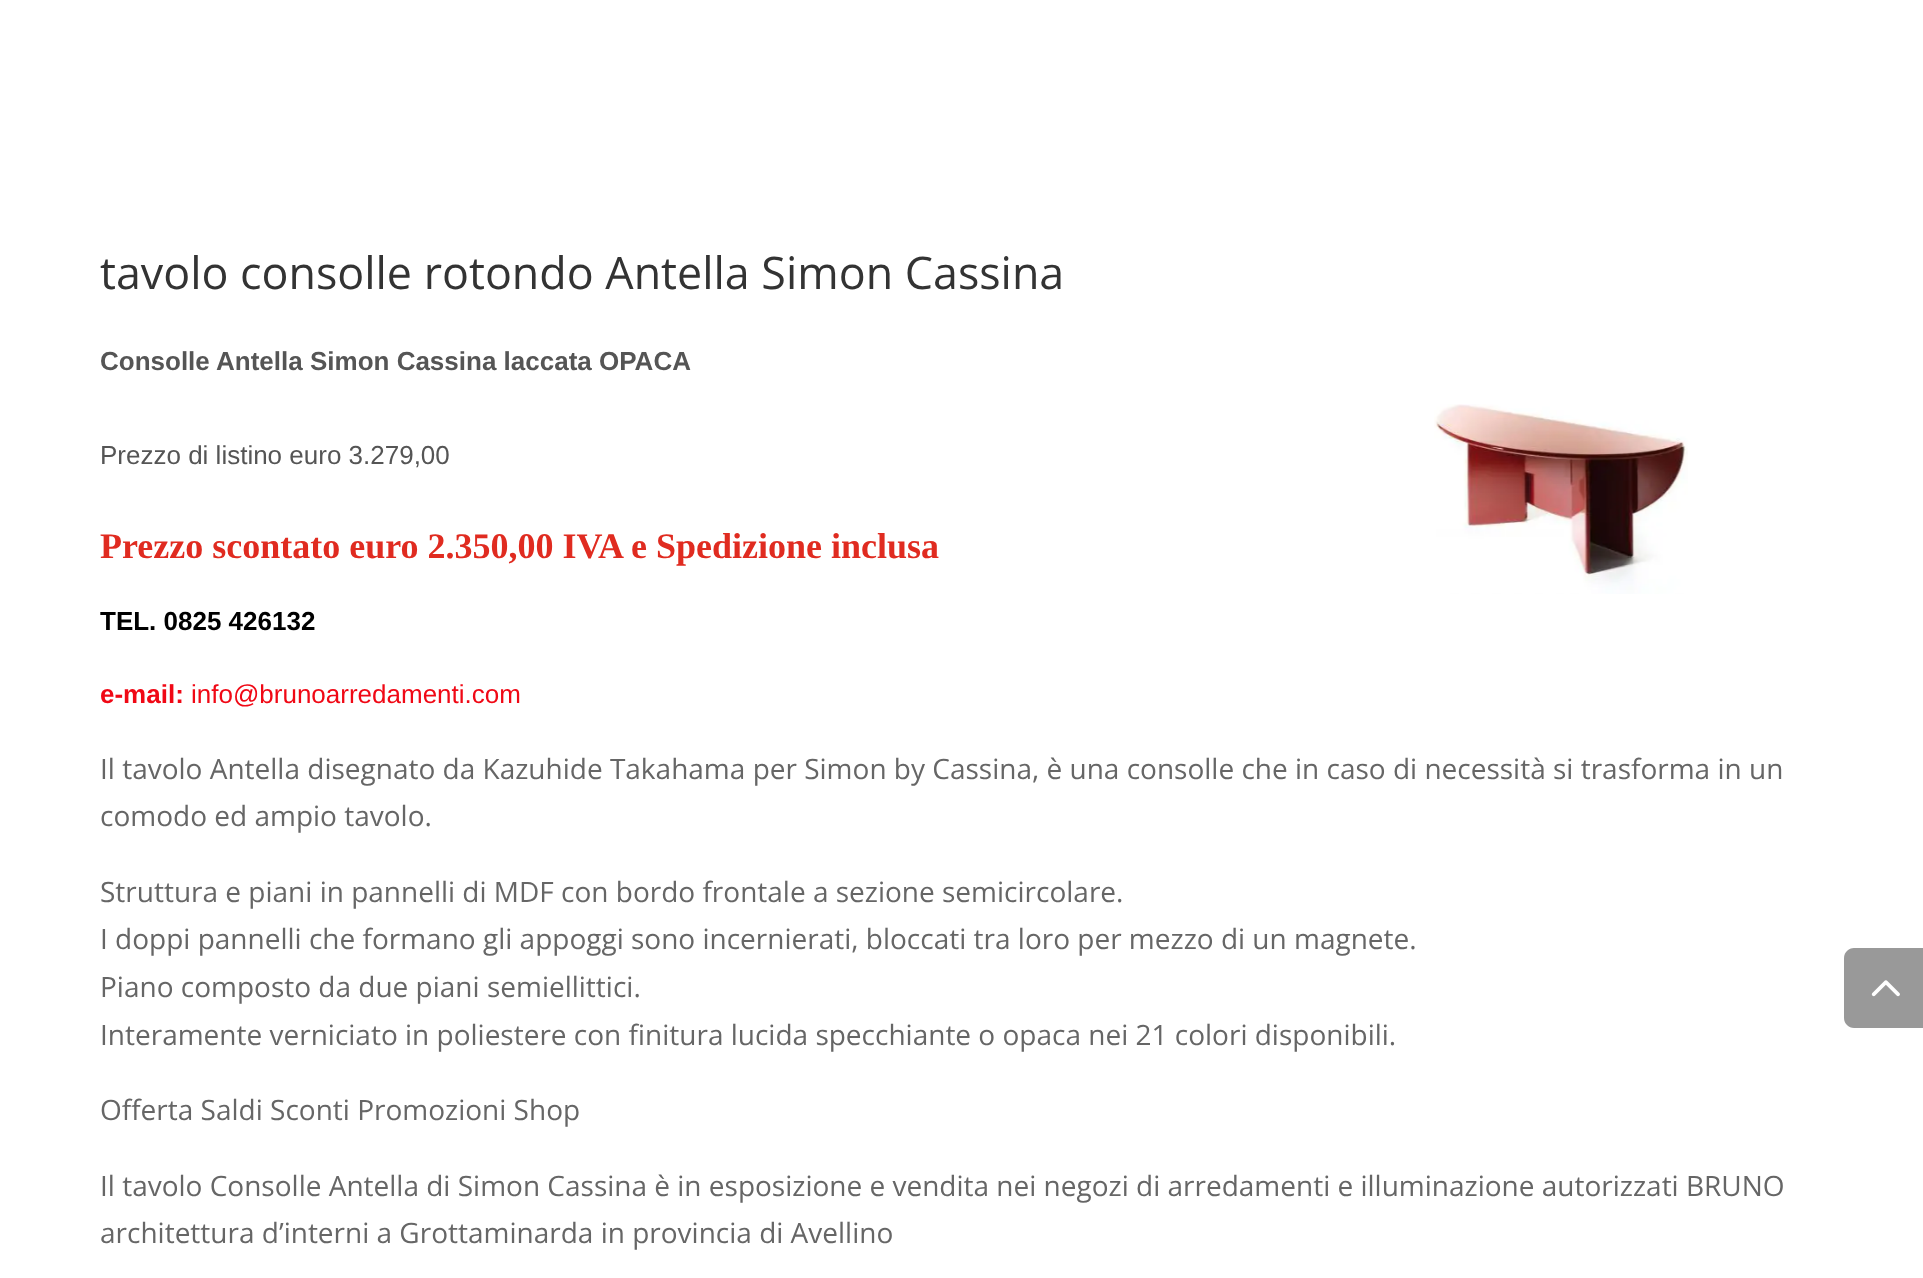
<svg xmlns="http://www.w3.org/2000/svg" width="1923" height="1278">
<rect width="100%" height="100%" fill="#fff"/>
<text x="100" y="289" style="font-family:Open Sans;font-size:44.8px;fill:#333">tavolo consolle rotondo Antella Simon Cassina</text>
<text x="100" y="370" style="font-family:Liberation Sans;font-size:26px;font-weight:bold;fill:#555">Consolle Antella Simon Cassina laccata OPACA</text>
<text x="100" y="464" style="font-family:Liberation Sans;font-size:26px;fill:#555">Prezzo di listino euro 3.279,00</text>
<text x="100" y="558" style="font-family:Liberation Serif;font-size:36px;font-weight:bold;fill:#e02b20">Prezzo scontato euro 2.350,00 IVA e Spedizione inclusa</text>
<text x="100" y="630" style="font-family:Liberation Sans;font-size:26px;font-weight:bold;fill:#000">TEL. 0825 426132</text>
<text x="100" y="703" style="font-family:Liberation Sans;font-size:26px;font-weight:bold;fill:#f00815">e-mail:</text>
<text x="191" y="703" style="font-family:Liberation Sans;font-size:26px;fill:#f00815">info@brunoarredamenti.com</text>
<text x="100" y="779" style="font-family:Open Sans;font-size:28px;fill:#666">Il tavolo Antella disegnato da Kazuhide Takahama per Simon by Cassina, è una consolle che in caso di necessità si trasforma in un</text>
<text x="100" y="826" style="font-family:Open Sans;font-size:28px;fill:#666">comodo ed ampio tavolo.</text>
<text x="100" y="902" style="font-family:Open Sans;font-size:28px;fill:#666">Struttura e piani in pannelli di MDF con bordo frontale a sezione semicircolare.</text>
<text x="100" y="949" style="font-family:Open Sans;font-size:28px;fill:#666">I doppi pannelli che formano gli appoggi sono incernierati, bloccati tra loro per mezzo di un magnete.</text>
<text x="100" y="997" style="font-family:Open Sans;font-size:28px;fill:#666">Piano composto da due piani semiellittici.</text>
<text x="100" y="1045" style="font-family:Open Sans;font-size:28px;fill:#666">Interamente verniciato in poliestere con finitura lucida specchiante o opaca nei 21 colori disponibili.</text>
<text x="100" y="1120" style="font-family:Open Sans;font-size:28px;fill:#666">Offerta Saldi Sconti Promozioni Shop</text>
<text x="100" y="1196" style="font-family:Open Sans;font-size:28px;fill:#666">Il tavolo Consolle Antella di Simon Cassina è in esposizione e vendita nei negozi di arredamenti e illuminazione autorizzati BRUNO</text>
<text x="100" y="1243" style="font-family:Open Sans;font-size:28px;fill:#666">architettura d’interni a Grottaminarda in provincia di Avellino</text>
<image x="1434" y="404" width="254" height="190" href="media/1.png"/>
<path d="M1854 948h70v80h-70c-5.5 0-10-4.5-10-10v-60c0-5.5 4.5-10 10-10z" fill="#999"/>
<image x="1871" y="980" width="29" height="17" href="media/2.png"/>
</svg>
